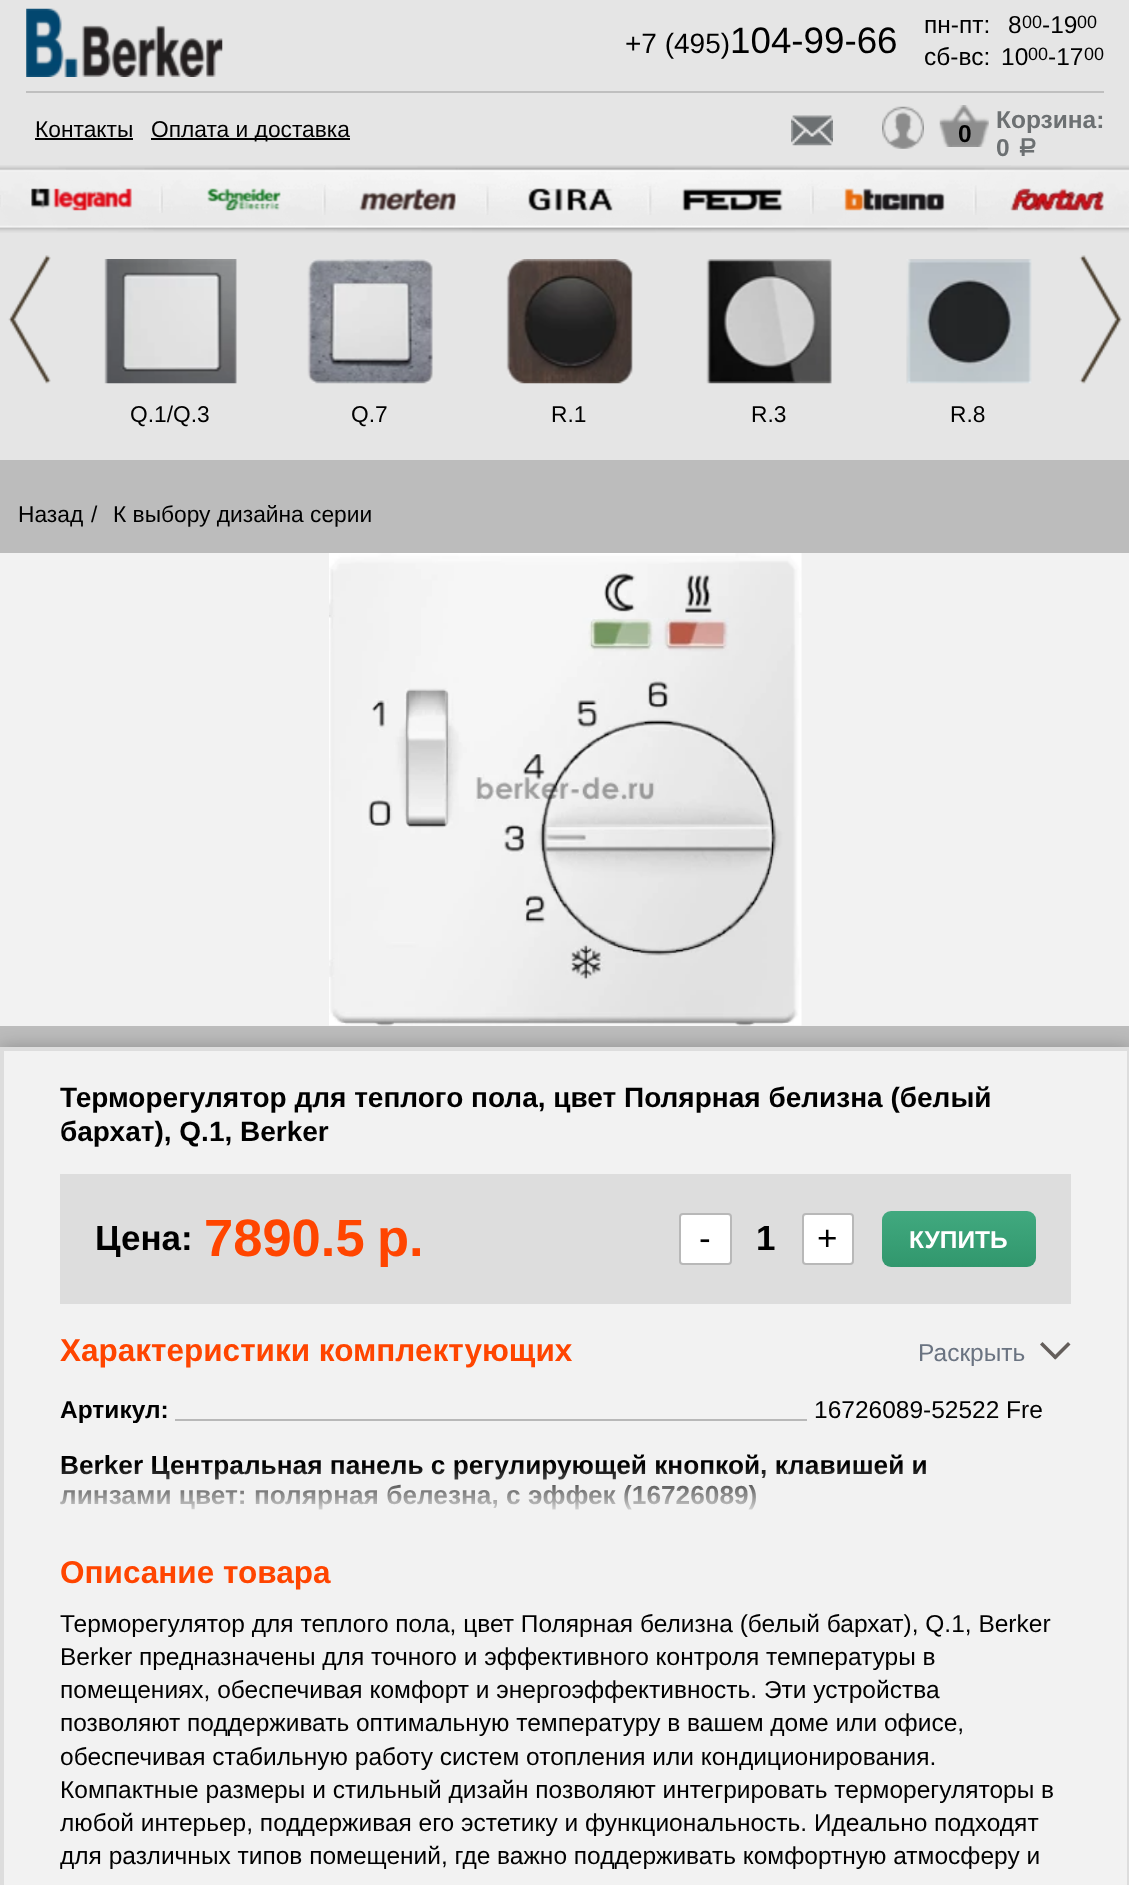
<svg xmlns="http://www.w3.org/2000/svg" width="1129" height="1885">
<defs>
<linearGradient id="g1" gradientUnits="userSpaceOnUse" x1="959" y1="1211" x2="959" y2="1267"><stop offset="0" stop-color="#41a97f"/><stop offset="1" stop-color="#31976d"/></linearGradient>
<clipPath id="clip1"><rect x="60" y="1372" width="1011" height="145"/></clipPath>
<linearGradient id="g2" gradientUnits="userSpaceOnUse" x1="565" y1="1465" x2="565" y2="1517"><stop offset="0" stop-color="#f2f2f2" stop-opacity="0"/><stop offset="1" stop-color="#f2f2f2"/></linearGradient>
<clipPath id="clip2"><rect x="60" y="1552" width="1011" height="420"/></clipPath>
</defs>
<rect width="100%" height="100%" fill="#bcbcbc"/>
<rect width="1129" height="460" fill="#e5e5e5"/>
<image x="26" y="8" width="197" height="69" href="media/1.png"/>
<text x="625" y="53" style="font-family:Liberation Sans;font-size:28px;fill:#000">+7 (495)</text>
<text x="730" y="53" style="font-family:Liberation Sans;font-size:36.75px;fill:#000">104-99-66</text>
<text x="924" y="33" style="font-family:Liberation Sans;font-size:24.5px;fill:#000">пн-пт:</text>
<text x="1008" y="33" style="font-family:Liberation Sans;font-size:24.5px;fill:#000">8</text>
<text x="1022" y="28" style="font-family:Liberation Sans;font-size:18px;fill:#000">00</text>
<text x="1042" y="33" style="font-family:Liberation Sans;font-size:24.5px;fill:#000">-19</text>
<text x="1077" y="28" style="font-family:Liberation Sans;font-size:18px;fill:#000">00</text>
<text x="924" y="65" style="font-family:Liberation Sans;font-size:24.5px;fill:#000">сб-вс:</text>
<text x="1001" y="65" style="font-family:Liberation Sans;font-size:24.5px;fill:#000">10</text>
<text x="1028" y="60" style="font-family:Liberation Sans;font-size:18px;fill:#000">00</text>
<text x="1048" y="65" style="font-family:Liberation Sans;font-size:24.5px;fill:#000">-17</text>
<text x="1084" y="60" style="font-family:Liberation Sans;font-size:18px;fill:#000">00</text>
<rect x="26" y="91" width="1078" height="2" fill="#bfbfbf"/>
<text x="35" y="137" style="font-family:Liberation Sans;font-size:22.75px;fill:#000">Контакты</text>
<rect x="35" y="138" width="98" height="2" fill="#000"/>
<rect x="151" y="138" width="199" height="2" fill="#000"/>
<text x="151" y="137" style="font-family:Liberation Sans;font-size:22.75px;fill:#000">Оплата и доставка</text>
<image x="791" y="115" width="42" height="31" href="media/2.png"/>
<image x="882" y="106" width="42" height="43" href="media/3.png"/>
<image x="939" y="105" width="50" height="42" href="media/4.png"/>
<text x="958" y="142" style="font-family:Liberation Sans;font-size:24.5px;font-weight:bold;fill:#000">0</text>
<text x="996" y="128" style="font-family:Liberation Sans;font-size:24.5px;font-weight:bold;fill:#6c7072">Корзина:</text>
<text x="996" y="156" style="font-family:Liberation Sans;font-size:24.5px;font-weight:bold;fill:#6c7072">0</text>
<text x="1016" y="156" style="font-family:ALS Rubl;font-size:24.5px;font-weight:bold;fill:#6c7072">a</text>
<image x="0" y="165" width="1129" height="68" href="media/5.png"/>
<image x="0" y="195" width="1" height="12" href="media/6.png"/>
<image x="31" y="188" width="101" height="23" href="media/7.png"/>
<image x="159" y="186" width="4" height="27" href="media/8.png"/>
<image x="207" y="188" width="74" height="23" href="media/9.png"/>
<image x="322" y="185" width="4" height="30" href="media/10.png"/>
<image x="359" y="188" width="97" height="23" href="media/11.png"/>
<image x="485" y="186" width="4" height="29" href="media/12.png"/>
<image x="528" y="188" width="85" height="23" href="media/13.png"/>
<image x="647" y="186" width="5" height="29" href="media/14.png"/>
<image x="682" y="188" width="101" height="23" href="media/15.png"/>
<image x="810" y="186" width="4" height="28" href="media/16.png"/>
<image x="844" y="188" width="101" height="23" href="media/17.png"/>
<image x="973" y="185" width="4" height="30" href="media/18.png"/>
<image x="1010" y="188" width="94" height="23" href="media/19.png"/>
<image x="8" y="255" width="43" height="129" href="media/20.png"/>
<image x="1079" y="255" width="43" height="129" href="media/21.png"/>
<image x="104" y="259" width="133" height="125" href="media/22.png"/>
<text x="130" y="422" style="font-family:Liberation Sans;font-size:22.75px;fill:#000">Q.1/Q.3</text>
<image x="307" y="259" width="126" height="125" href="media/23.png"/>
<text x="351" y="422" style="font-family:Liberation Sans;font-size:22.75px;fill:#000">Q.7</text>
<image x="506" y="259" width="127" height="125" href="media/24.png"/>
<text x="551" y="422" style="font-family:Liberation Sans;font-size:22.75px;fill:#000">R.1</text>
<image x="706" y="259" width="126" height="125" href="media/25.png"/>
<text x="751" y="422" style="font-family:Liberation Sans;font-size:22.75px;fill:#000">R.3</text>
<image x="906" y="259" width="126" height="125" href="media/26.png"/>
<text x="950" y="422" style="font-family:Liberation Sans;font-size:22.75px;fill:#000">R.8</text>
<text x="18" y="522" style="font-family:Liberation Sans;font-size:22.75px;fill:#000">Назад</text>
<text x="91" y="522" style="font-family:Liberation Sans;font-size:22.75px;fill:#000">/</text>
<text x="113" y="522" style="font-family:Liberation Sans;font-size:22.75px;fill:#000">К выбору дизайна серии</text>
<rect y="553" width="1129" height="473" fill="#f2f2f2"/>
<image x="329" y="553" width="473" height="473" href="media/27.png"/>
<rect y="1047" width="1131" height="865" fill="#00000040" filter="blur(9px)"/>
<rect x="2" y="1049" width="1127" height="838" fill="#f2f2f2" stroke="#ddd" stroke-width="4"/>
<text x="60" y="1107" style="font-family:Liberation Sans;font-size:28px;font-weight:bold;fill:#000">Терморегулятор для теплого пола, цвет Полярная белизна (белый</text>
<text x="60" y="1141" style="font-family:Liberation Sans;font-size:28px;font-weight:bold;fill:#000">бархат), Q.1, Berker</text>
<rect x="60" y="1174" width="1011" height="130" fill="#ddd"/>
<text x="95" y="1250" style="font-family:Liberation Sans;font-size:35px;font-weight:bold;fill:#000">Цена:</text>
<text x="204" y="1256" style="font-family:Liberation Sans;font-size:52.5px;font-weight:bold;fill:#ff4500">7890.5</text>
<text x="377" y="1256" style="font-family:Liberation Sans;font-size:52.5px;font-weight:bold;fill:#ff4500">р.</text>
<rect x="680" y="1214" width="51" height="50" rx="3" fill="#fff" stroke="#b8b8b8" stroke-width="2"/>
<text x="699" y="1250" style="font-family:Liberation Sans;font-size:35px;fill:#000">-</text>
<text x="756" y="1250" style="font-family:Liberation Sans;font-size:35px;font-weight:bold;fill:#000">1</text>
<rect x="803" y="1214" width="50" height="50" rx="3" fill="#fff" stroke="#b8b8b8" stroke-width="2"/>
<text x="817" y="1250" style="font-family:Liberation Sans;font-size:35px;fill:#000">+</text>
<rect x="882" y="1211" width="154" height="56" rx="9" fill="url(#g1)"/>
<text x="909" y="1248" style="font-family:Liberation Sans;font-size:24.5px;font-weight:bold;fill:#fff">КУПИТЬ</text>
<text x="60" y="1361" style="font-family:Liberation Sans;font-size:31.5px;font-weight:bold;fill:#ff4500">Характеристики комплектующих</text>
<text x="918" y="1361" style="font-family:Liberation Sans;font-size:24.5px;fill:#6a7381">Раскрыть</text>
<path d="M1040 1344.5l2.5-2.5l15 15l-2.5 2.5z" fill="#645e5b"/>
<path d="M1068 1342l2.5 2.5l-15 15l-2.5-2.5z" fill="#645e5b"/>
<text x="60" y="1418" style="font-family:Liberation Sans;font-size:24.5px;font-weight:bold;fill:#000">Артикул:</text>
<rect x="175" y="1419" width="632" height="2" fill="#b8b8b8"/>
<text x="814" y="1418" style="font-family:Liberation Sans;font-size:24.5px;fill:#000">16726089-52522 Fre</text>
<text x="60" y="1474" style="font-family:Liberation Sans;font-size:26.25px;font-weight:bold;fill:#000">Berker Центральная панель с регулирующей кнопкой, клавишей и</text>
<g clip-path="url(#clip1)">
<text x="60" y="1504" style="font-family:Liberation Sans;font-size:26.25px;font-weight:bold;fill:#000">линзами цвет: полярная белезна, с эффек (16726089)</text>
</g>
<rect x="60" y="1466" width="866" height="44" fill="url(#g2)"/>
<text x="60" y="1583" style="font-family:Liberation Sans;font-size:31.5px;font-weight:bold;fill:#ff4500">Описание товара</text>
<text x="60" y="1632" style="font-family:Liberation Sans;font-size:24.5px;fill:#000">Терморегулятор для теплого пола, цвет Полярная белизна (белый бархат), Q.1, Berker</text>
<text x="60" y="1665" style="font-family:Liberation Sans;font-size:24.5px;fill:#000">Berker предназначены для точного и эффективного контроля температуры в</text>
<text x="60" y="1698" style="font-family:Liberation Sans;font-size:24.5px;fill:#000">помещениях, обеспечивая комфорт и энергоэффективность. Эти устройства</text>
<text x="60" y="1731" style="font-family:Liberation Sans;font-size:24.5px;fill:#000">позволяют поддерживать оптимальную температуру в вашем доме или офисе,</text>
<text x="60" y="1765" style="font-family:Liberation Sans;font-size:24.5px;fill:#000">обеспечивая стабильную работу систем отопления или кондиционирования.</text>
<text x="60" y="1798" style="font-family:Liberation Sans;font-size:24.5px;fill:#000">Компактные размеры и стильный дизайн позволяют интегрировать терморегуляторы в</text>
<text x="60" y="1831" style="font-family:Liberation Sans;font-size:24.5px;fill:#000">любой интерьер, поддерживая его эстетику и функциональность. Идеально подходят</text>
<g clip-path="url(#clip2)">
<text x="60" y="1864" style="font-family:Liberation Sans;font-size:24.5px;fill:#000">для различных типов помещений, где важно поддерживать комфортную атмосферу и</text>
</g>
</svg>
